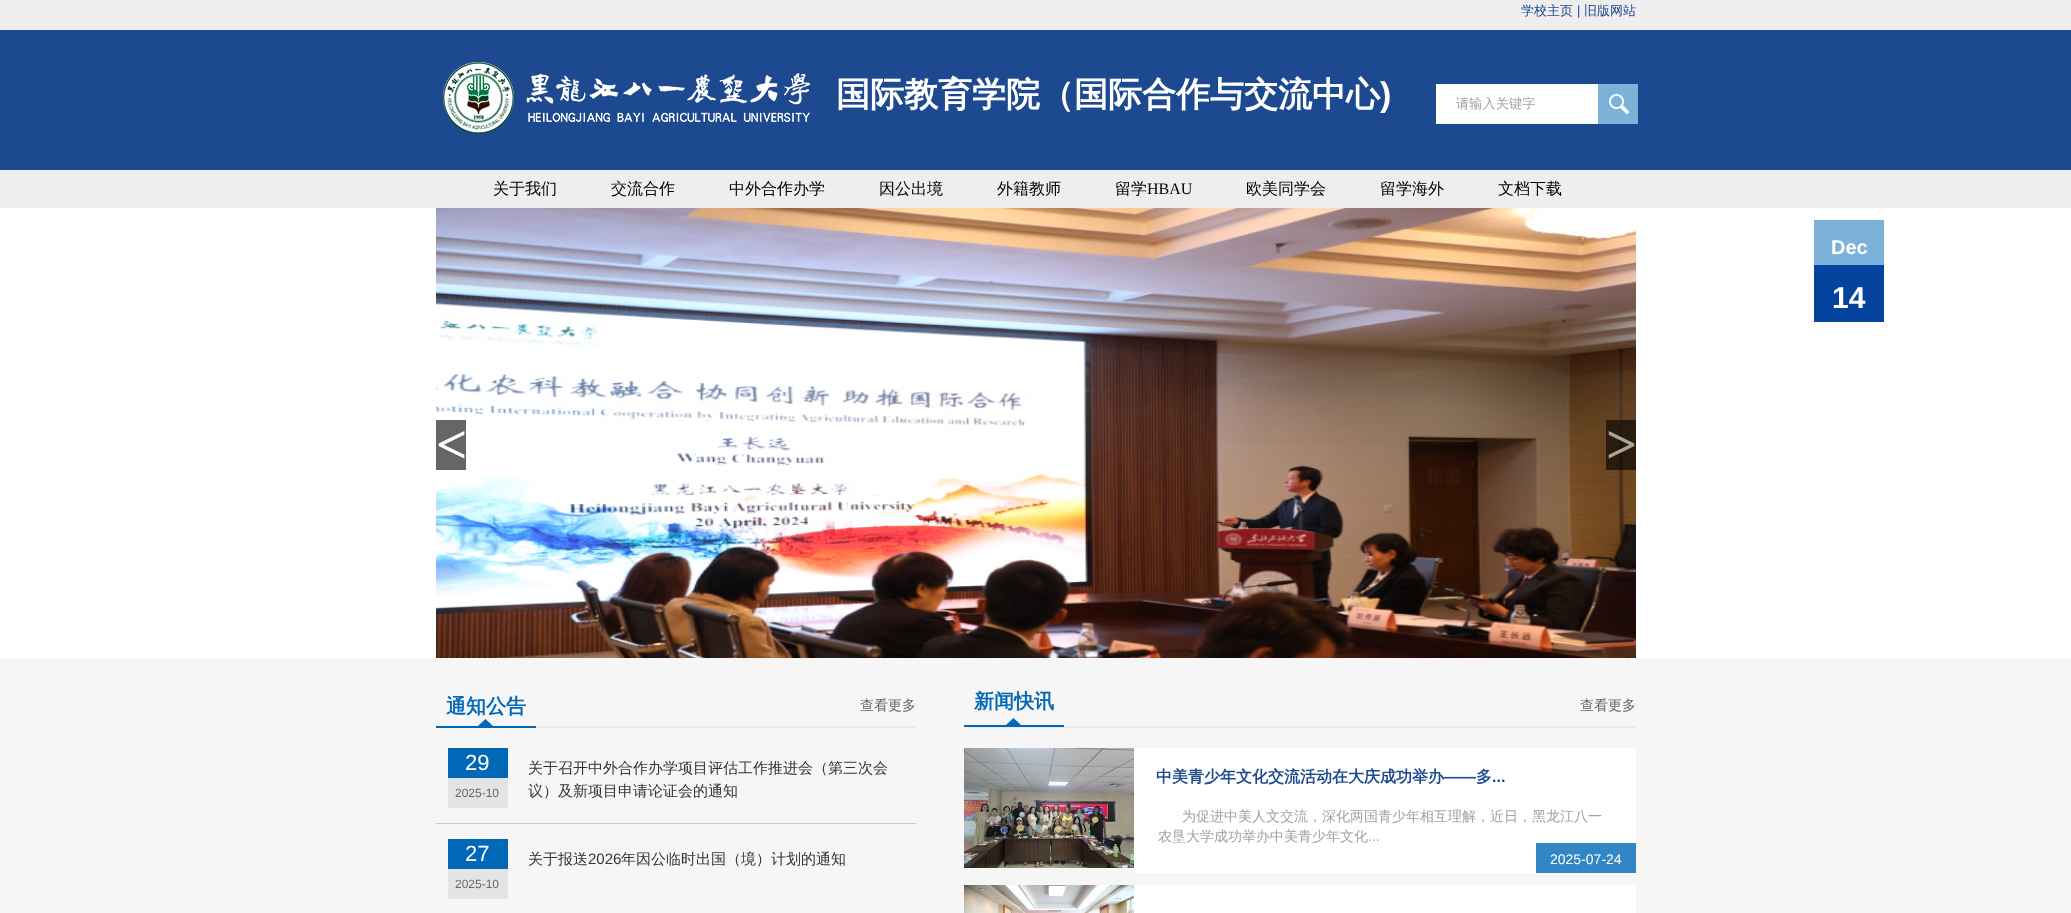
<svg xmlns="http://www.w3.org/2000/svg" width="2071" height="913">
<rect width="100%" height="100%" fill="#fff"/>
<rect y="30" width="2071" height="140" fill="#1d4990"/>
<rect width="2071" height="30" fill="#eee"/>
<text x="1521" y="15" style="font-family:WenQuanYi Zen Hei;font-size:13px;font-weight:500;fill:#1d4990">学校主页</text>
<text x="1577" y="15" style="font-family:Liberation Sans;font-size:13px;fill:#1d4990">|</text>
<text x="1584" y="15" style="font-family:WenQuanYi Zen Hei;font-size:13px;font-weight:500;fill:#1d4990">旧版网站</text>
<image x="443" y="62" width="367" height="72" href="media/1.png"/>
<text x="836" y="106" style="font-family:WenQuanYi Zen Hei;font-size:34px;font-weight:bold;fill:#fff">国际教育学院（国际合作与交流中心</text>
<text x="1380" y="106" style="font-family:Liberation Sans;font-size:34px;font-weight:bold;fill:#fff">)</text>
<rect x="1436" y="84" width="162" height="40" fill="#fff"/>
<text x="1456" y="108" style="font-family:WenQuanYi Zen Hei;font-size:13.25px;font-weight:500;fill:#a2a2a2">请输入关键字</text>
<image x="1598" y="84" width="40" height="40" href="media/2.png"/>
<rect y="170" width="2071" height="38" fill="#eee"/>
<text x="493" y="194" style="font-family:WenQuanYi Zen Hei;font-size:16px;font-weight:500;fill:#000">关于我们</text>
<text x="611" y="194" style="font-family:WenQuanYi Zen Hei;font-size:16px;font-weight:500;fill:#000">交流合作</text>
<text x="729" y="194" style="font-family:WenQuanYi Zen Hei;font-size:16px;font-weight:500;fill:#000">中外合作办学</text>
<text x="879" y="194" style="font-family:WenQuanYi Zen Hei;font-size:16px;font-weight:500;fill:#000">因公出境</text>
<text x="997" y="194" style="font-family:WenQuanYi Zen Hei;font-size:16px;font-weight:500;fill:#000">外籍教师</text>
<text x="1115" y="194" style="font-family:WenQuanYi Zen Hei;font-size:16px;font-weight:500;fill:#000">留学</text>
<text x="1147" y="194" style="font-family:Liberation Serif;font-size:16px;fill:#000">HBAU</text>
<text x="1246" y="194" style="font-family:WenQuanYi Zen Hei;font-size:16px;font-weight:500;fill:#000">欧美同学会</text>
<text x="1380" y="194" style="font-family:WenQuanYi Zen Hei;font-size:16px;font-weight:500;fill:#000">留学海外</text>
<text x="1498" y="194" style="font-family:WenQuanYi Zen Hei;font-size:16px;font-weight:500;fill:#000">文档下载</text>
<rect x="1814" y="220" width="70" height="45" fill="#7cb1da"/>
<text x="1831" y="254" style="font-family:Liberation Sans;font-size:20px;font-weight:bold;fill:#fff">Dec</text>
<rect x="1814" y="265" width="70" height="57" fill="#04449e"/>
<text x="1832" y="308" style="font-family:Liberation Sans;font-size:30px;font-weight:bold;fill:#fff">14</text>
<image x="436" y="208" width="1200" height="450" href="media/3.png"/>
<rect x="436" y="420" width="30" height="50" fill="#666"/>
<text x="436" y="463" style="font-family:Liberation Serif;font-size:55px;font-weight:bold;fill:#fff">&lt;</text>
<rect x="1606" y="420" width="30" height="50" fill="#00000099"/>
<text x="1606" y="463" style="font-family:Liberation Serif;font-size:55px;font-weight:bold;fill:#a9a49f">&gt;</text>
<rect y="658" width="2071" height="255" fill="#f6f6f6"/>
<rect x="536" y="726" width="380" height="2" fill="#e9e9e9"/>
<image x="478" y="719" width="15" height="7" href="media/4.png"/>
<rect x="436" y="726" width="100" height="2" fill="#0068b7"/>
<text x="446" y="713" style="font-family:WenQuanYi Zen Hei;font-size:20px;font-weight:bold;fill:#0068b7">通知公告</text>
<text x="860" y="710" style="font-family:WenQuanYi Zen Hei;font-size:14px;font-weight:500;fill:#666">查看更多</text>
<rect x="436" y="823" width="480" height="1" fill="#ccc"/>
<rect x="448" y="748" width="60" height="30" fill="#0068b7"/>
<text x="465" y="770" style="font-family:Liberation Sans;font-size:22px;fill:#fff">29</text>
<rect x="448" y="778" width="60" height="30" fill="#e3e4e6"/>
<text x="455" y="797" style="font-family:Liberation Sans;font-size:12px;fill:#666">2025-10</text>
<text x="528" y="773" style="font-family:WenQuanYi Zen Hei;font-size:15px;font-weight:500;fill:#333">关于召开中外合作办学项目评估工作推进会（第三次会</text>
<text x="528" y="796" style="font-family:WenQuanYi Zen Hei;font-size:15px;font-weight:500;fill:#333">议）及新项目申请论证会的通知</text>
<rect x="448" y="839" width="60" height="30" fill="#0068b7"/>
<text x="465" y="861" style="font-family:Liberation Sans;font-size:22px;fill:#fff">27</text>
<rect x="448" y="869" width="60" height="30" fill="#e3e4e6"/>
<text x="455" y="888" style="font-family:Liberation Sans;font-size:12px;fill:#666">2025-10</text>
<text x="528" y="864" style="font-family:WenQuanYi Zen Hei;font-size:15px;font-weight:500;fill:#333">关于报送</text>
<text x="588" y="864" style="font-family:Liberation Sans;font-size:15px;fill:#333">2026</text>
<text x="621" y="864" style="font-family:WenQuanYi Zen Hei;font-size:15px;font-weight:500;fill:#333">年因公临时出国（境）计划的通知</text>
<rect x="964" y="726" width="672" height="2" fill="#e9e9e9"/>
<image x="1006" y="718" width="15" height="7" href="media/4.png"/>
<rect x="964" y="725" width="100" height="2" fill="#0068b7"/>
<text x="974" y="708" style="font-family:WenQuanYi Zen Hei;font-size:20px;font-weight:bold;fill:#0068b7">新闻快讯</text>
<text x="1580" y="710" style="font-family:WenQuanYi Zen Hei;font-size:14px;font-weight:500;fill:#666">查看更多</text>
<image x="964" y="748" width="170" height="120" href="media/5.png"/>
<rect x="1134" y="748" width="502" height="125" fill="#fff"/>
<text x="1156" y="782" style="font-family:WenQuanYi Zen Hei;font-size:16px;font-weight:bold;fill:#1d4990">中美青少年文化交流活动在大庆成功举办</text>
<text x="1444" y="782" style="font-family:Liberation Sans;font-size:16px;font-weight:bold;fill:#1d4990">——</text>
<text x="1476" y="782" style="font-family:WenQuanYi Zen Hei;font-size:16px;font-weight:bold;fill:#1d4990">多</text>
<text x="1492" y="782" style="font-family:Liberation Sans;font-size:16px;font-weight:bold;fill:#1d4990">...</text>
<text x="1182" y="821" style="font-family:WenQuanYi Zen Hei;font-size:14px;font-weight:500;fill:#a2a2a2">为促进中美人文交流，深化两国青少年相互理解，近日，黑龙江八一</text>
<text x="1158" y="841" style="font-family:WenQuanYi Zen Hei;font-size:14px;font-weight:500;fill:#a2a2a2">农垦大学成功举办中美青少年文化</text>
<text x="1368" y="841" style="font-family:Liberation Sans;font-size:14px;fill:#a2a2a2">...</text>
<rect x="1536" y="843" width="100" height="30" fill="#3386c5"/>
<text x="1550" y="864" style="font-family:Liberation Sans;font-size:14px;fill:#fff">2025-07-24</text>
<image x="964" y="885" width="170" height="28" href="media/6.png"/>
<rect x="1134" y="885" width="502" height="28" fill="#fff"/>
</svg>
